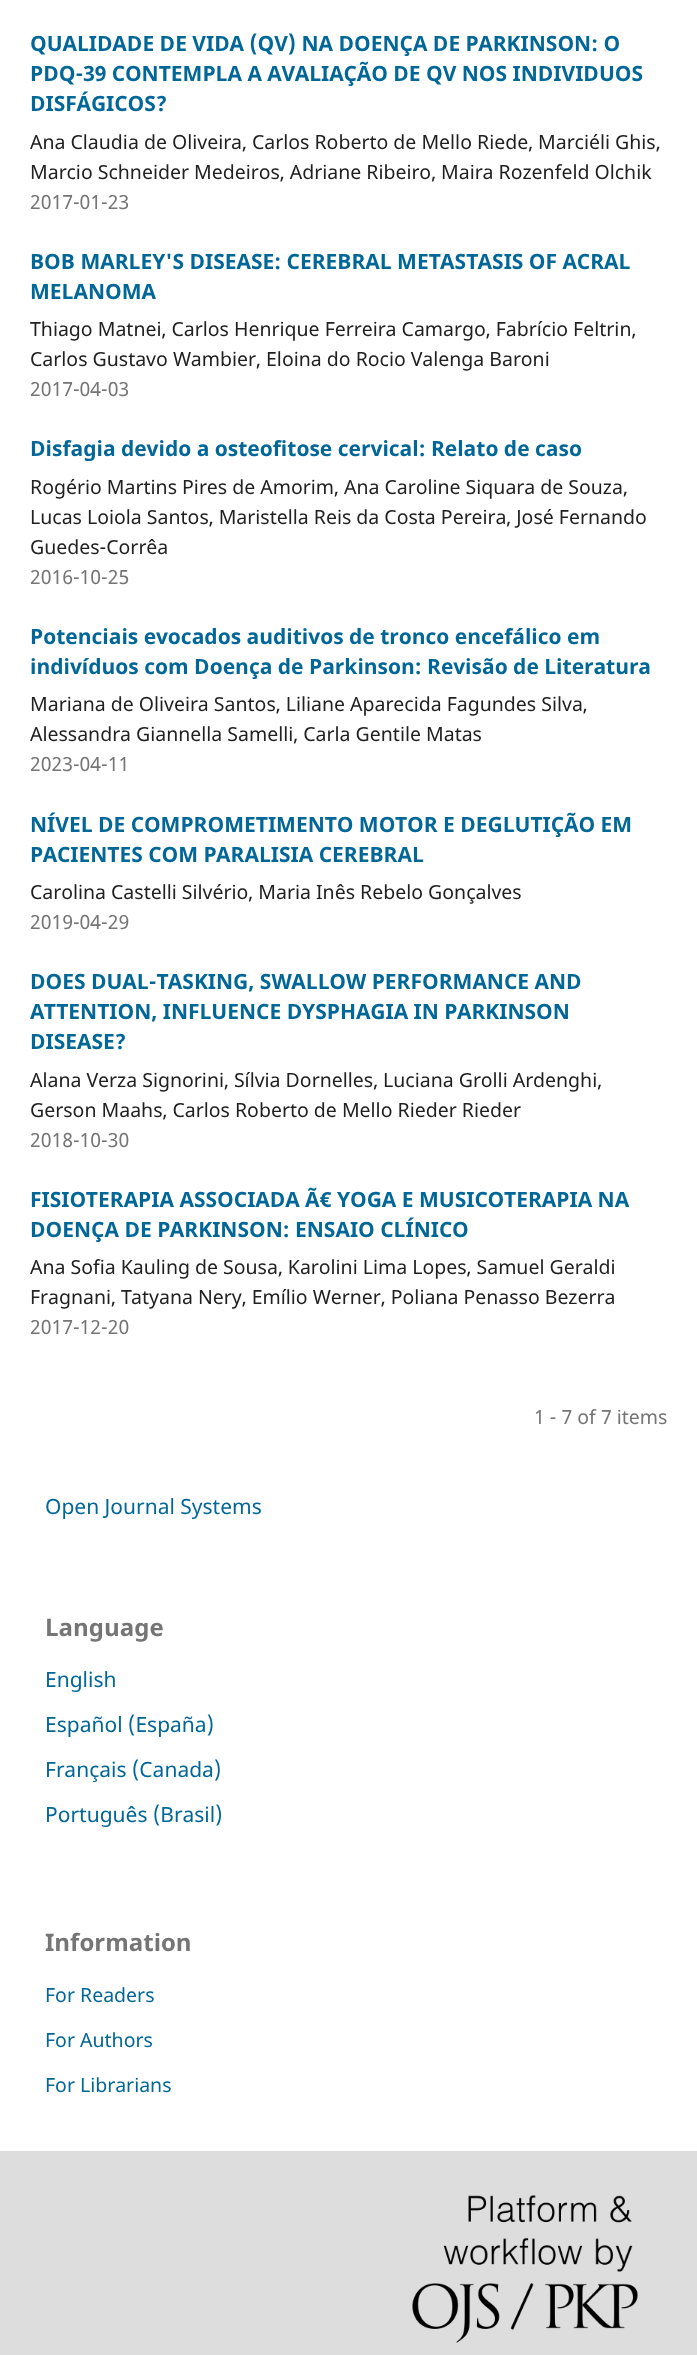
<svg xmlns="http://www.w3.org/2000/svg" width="697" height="2355">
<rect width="100%" height="100%" fill="#fff"/>
<text x="30" y="51" style="font-family:Noto Sans;font-size:21px;font-weight:bold;fill:#006798">QUALIDADE DE VIDA (QV) NA DOENÇA DE PARKINSON: O</text>
<text x="30" y="81" style="font-family:Noto Sans;font-size:21px;font-weight:bold;fill:#006798">PDQ-39 CONTEMPLA A AVALIAÇÃO DE QV NOS INDIVIDUOS</text>
<text x="30" y="111" style="font-family:Noto Sans;font-size:21px;font-weight:bold;fill:#006798">DISFÁGICOS?</text>
<text x="30" y="149" style="font-family:Noto Sans;font-size:19.5px;fill:#212121">Ana Claudia de Oliveira, Carlos Roberto de Mello Riede, Marciéli Ghis,</text>
<text x="30" y="179" style="font-family:Noto Sans;font-size:19.5px;fill:#212121">Marcio Schneider Medeiros, Adriane Ribeiro, Maira Rozenfeld Olchik</text>
<text x="30" y="209" style="font-family:Noto Sans;font-size:19.5px;fill:#757575">2017-01-23</text>
<text x="30" y="269" style="font-family:Noto Sans;font-size:21px;font-weight:bold;fill:#006798">BOB MARLEY'S DISEASE: CEREBRAL METASTASIS OF ACRAL</text>
<text x="30" y="299" style="font-family:Noto Sans;font-size:21px;font-weight:bold;fill:#006798">MELANOMA</text>
<text x="30" y="336" style="font-family:Noto Sans;font-size:19.5px;fill:#212121">Thiago Matnei, Carlos Henrique Ferreira Camargo, Fabrício Feltrin,</text>
<text x="30" y="366" style="font-family:Noto Sans;font-size:19.5px;fill:#212121">Carlos Gustavo Wambier, Eloina do Rocio Valenga Baroni</text>
<text x="30" y="396" style="font-family:Noto Sans;font-size:19.5px;fill:#757575">2017-04-03</text>
<text x="30" y="456" style="font-family:Noto Sans;font-size:21px;font-weight:bold;fill:#006798">Disfagia devido a osteofitose cervical: Relato de caso</text>
<text x="30" y="494" style="font-family:Noto Sans;font-size:19.5px;fill:#212121">Rogério Martins Pires de Amorim, Ana Caroline Siquara de Souza,</text>
<text x="30" y="524" style="font-family:Noto Sans;font-size:19.5px;fill:#212121">Lucas Loiola Santos, Maristella Reis da Costa Pereira, José Fernando</text>
<text x="30" y="554" style="font-family:Noto Sans;font-size:19.5px;fill:#212121">Guedes-Corrêa</text>
<text x="30" y="584" style="font-family:Noto Sans;font-size:19.5px;fill:#757575">2016-10-25</text>
<text x="30" y="644" style="font-family:Noto Sans;font-size:21px;font-weight:bold;fill:#006798">Potenciais evocados auditivos de tronco encefálico em</text>
<text x="30" y="674" style="font-family:Noto Sans;font-size:21px;font-weight:bold;fill:#006798">indivíduos com Doença de Parkinson: Revisão de Literatura</text>
<text x="30" y="711" style="font-family:Noto Sans;font-size:19.5px;fill:#212121">Mariana de Oliveira Santos, Liliane Aparecida Fagundes Silva,</text>
<text x="30" y="741" style="font-family:Noto Sans;font-size:19.5px;fill:#212121">Alessandra Giannella Samelli, Carla Gentile Matas</text>
<text x="30" y="771" style="font-family:Noto Sans;font-size:19.5px;fill:#757575">2023-04-11</text>
<text x="30" y="832" style="font-family:Noto Sans;font-size:21px;font-weight:bold;fill:#006798">NÍVEL DE COMPROMETIMENTO MOTOR E DEGLUTIÇÃO EM</text>
<text x="30" y="862" style="font-family:Noto Sans;font-size:21px;font-weight:bold;fill:#006798">PACIENTES COM PARALISIA CEREBRAL</text>
<text x="30" y="899" style="font-family:Noto Sans;font-size:19.5px;fill:#212121">Carolina Castelli Silvério, Maria Inês Rebelo Gonçalves</text>
<text x="30" y="929" style="font-family:Noto Sans;font-size:19.5px;fill:#757575">2019-04-29</text>
<text x="30" y="989" style="font-family:Noto Sans;font-size:21px;font-weight:bold;fill:#006798">DOES DUAL-TASKING, SWALLOW PERFORMANCE AND</text>
<text x="30" y="1019" style="font-family:Noto Sans;font-size:21px;font-weight:bold;fill:#006798">ATTENTION, INFLUENCE DYSPHAGIA IN PARKINSON</text>
<text x="30" y="1049" style="font-family:Noto Sans;font-size:21px;font-weight:bold;fill:#006798">DISEASE?</text>
<text x="30" y="1087" style="font-family:Noto Sans;font-size:19.5px;fill:#212121">Alana Verza Signorini, Sílvia Dornelles, Luciana Grolli Ardenghi,</text>
<text x="30" y="1117" style="font-family:Noto Sans;font-size:19.5px;fill:#212121">Gerson Maahs, Carlos Roberto de Mello Rieder Rieder</text>
<text x="30" y="1147" style="font-family:Noto Sans;font-size:19.5px;fill:#757575">2018-10-30</text>
<text x="30" y="1207" style="font-family:Noto Sans;font-size:21px;font-weight:bold;fill:#006798">FISIOTERAPIA ASSOCIADA Ã€ YOGA E MUSICOTERAPIA NA</text>
<text x="30" y="1237" style="font-family:Noto Sans;font-size:21px;font-weight:bold;fill:#006798">DOENÇA DE PARKINSON: ENSAIO CLÍNICO</text>
<text x="30" y="1274" style="font-family:Noto Sans;font-size:19.5px;fill:#212121">Ana Sofia Kauling de Sousa, Karolini Lima Lopes, Samuel Geraldi</text>
<text x="30" y="1304" style="font-family:Noto Sans;font-size:19.5px;fill:#212121">Fragnani, Tatyana Nery, Emílio Werner, Poliana Penasso Bezerra</text>
<text x="30" y="1334" style="font-family:Noto Sans;font-size:19.5px;fill:#757575">2017-12-20</text>
<text x="534" y="1424" style="font-family:Noto Sans;font-size:19.5px;fill:#757575">1 - 7 of 7 items</text>
<text x="45" y="1514" style="font-family:Noto Sans;font-size:21px;fill:#006798">Open Journal Systems</text>
<text x="45" y="1636" style="font-family:Noto Sans;font-size:24px;font-weight:bold;fill:#757575">Language</text>
<text x="45" y="1687" style="font-family:Noto Sans;font-size:21px;fill:#006798">English</text>
<text x="45" y="1732" style="font-family:Noto Sans;font-size:21px;fill:#006798">Español (España)</text>
<text x="45" y="1777" style="font-family:Noto Sans;font-size:21px;fill:#006798">Français (Canada)</text>
<text x="45" y="1822" style="font-family:Noto Sans;font-size:21px;fill:#006798">Português (Brasil)</text>
<text x="45" y="1951" style="font-family:Noto Sans;font-size:24px;font-weight:bold;fill:#757575">Information</text>
<text x="45" y="2002" style="font-family:Noto Sans;font-size:19.5px;fill:#006798">For Readers</text>
<text x="45" y="2047" style="font-family:Noto Sans;font-size:19.5px;fill:#006798">For Authors</text>
<text x="45" y="2092" style="font-family:Noto Sans;font-size:19.5px;fill:#006798">For Librarians</text>
<rect y="2151" width="697" height="204" fill="#ddd"/>
<image x="412" y="2195" width="226" height="148" href="media/1.png"/>
</svg>
